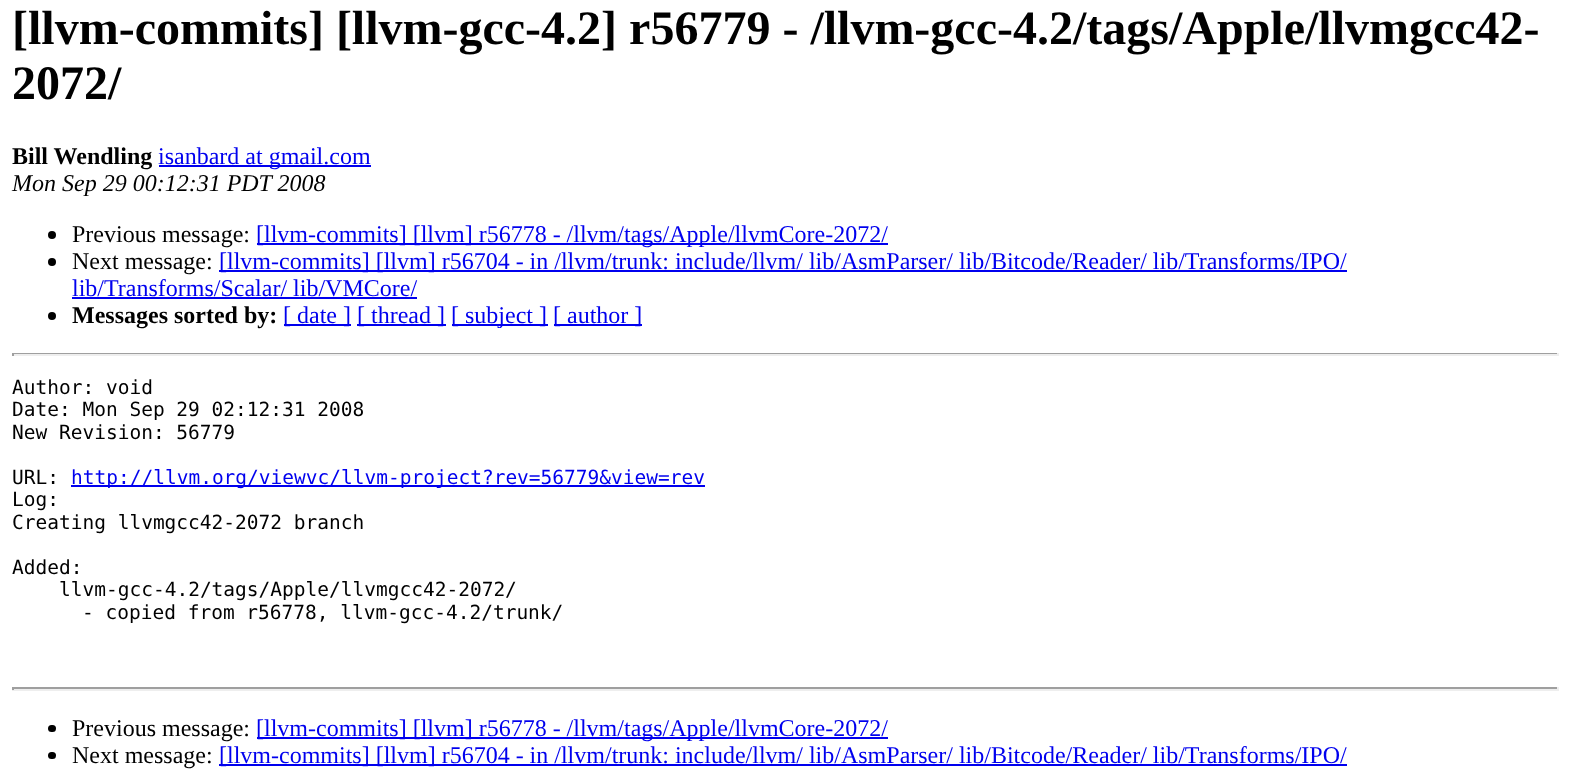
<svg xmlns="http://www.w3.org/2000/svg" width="1570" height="777">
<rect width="100%" height="100%" fill="#fff"/>
<text x="12" y="44" style="font-family:Liberation Serif;font-size:48px;font-weight:bold;fill:#000">[llvm-commits] [llvm-gcc-4.2] r56779 - /llvm-gcc-4.2/tags/Apple/llvmgcc42-</text>
<text x="12" y="99" style="font-family:Liberation Serif;font-size:48px;font-weight:bold;fill:#000">2072/</text>
<text x="12" y="164" style="font-family:Liberation Serif;font-size:24px;font-weight:bold;fill:#000">Bill Wendling</text>
<rect x="159" y="165" width="212" height="2" fill="#00e"/>
<text x="158" y="164" style="font-family:Liberation Serif;font-size:24px;fill:#00e">isanbard at gmail.com</text>
<text x="12" y="191" style="font-family:Liberation Serif;font-size:24px;font-style:italic;fill:#000">Mon Sep 29 00:12:31 PDT 2008</text>
<circle cx="52" cy="235" r="4" fill="#000"/>
<text x="72" y="242" style="font-family:Liberation Serif;font-size:24px;fill:#000">Previous message:</text>
<rect x="257" y="243" width="631" height="2" fill="#00e"/>
<text x="256" y="242" style="font-family:Liberation Serif;font-size:24px;fill:#00e">[llvm-commits] [llvm] r56778 - /llvm/tags/Apple/llvmCore-2072/</text>
<circle cx="52" cy="262" r="4" fill="#000"/>
<text x="72" y="269" style="font-family:Liberation Serif;font-size:24px;fill:#000">Next message:</text>
<rect x="219" y="270" width="1128" height="2" fill="#00e"/>
<text x="219" y="269" style="font-family:Liberation Serif;font-size:24px;fill:#00e">[llvm-commits] [llvm] r56704 - in /llvm/trunk: include/llvm/ lib/AsmParser/ lib/Bitcode/Reader/ lib/Transforms/IPO/</text>
<text x="72" y="296" style="font-family:Liberation Serif;font-size:24px;fill:#00e">lib/Transforms/Scalar/ lib/VMCore/</text>
<rect x="72" y="297" width="345" height="2" fill="#00e"/>
<circle cx="52" cy="316" r="4" fill="#000"/>
<text x="72" y="323" style="font-family:Liberation Serif;font-size:24px;font-weight:bold;fill:#000">Messages sorted by:</text>
<rect x="284" y="324" width="67" height="2" fill="#00e"/>
<text x="283" y="323" style="font-family:Liberation Serif;font-size:24px;fill:#00e">[ date ]</text>
<rect x="357" y="324" width="89" height="2" fill="#00e"/>
<text x="357" y="323" style="font-family:Liberation Serif;font-size:24px;fill:#00e">[ thread ]</text>
<rect x="452" y="324" width="96" height="2" fill="#00e"/>
<text x="451" y="323" style="font-family:Liberation Serif;font-size:24px;fill:#00e">[ subject ]</text>
<rect x="554" y="324" width="88" height="2" fill="#00e"/>
<text x="553" y="323" style="font-family:Liberation Serif;font-size:24px;fill:#00e">[ author ]</text>
<rect x="12" y="353" width="1547" height="1" fill="#9f9f9f"/>
<rect x="1557" y="353" width="2" height="3" fill="#eee"/>
<rect x="12" y="354" width="1547" height="2" fill="#eee"/>
<rect x="12" y="353" width="2" height="3" fill="#9f9f9f"/>
<text x="12" y="394" style="font-family:DejaVu Sans Mono;font-size:19.5px;fill:#000">Author: void</text>
<text x="12" y="416" style="font-family:DejaVu Sans Mono;font-size:19.5px;fill:#000">Date: Mon Sep 29 02:12:31 2008</text>
<text x="12" y="439" style="font-family:DejaVu Sans Mono;font-size:19.5px;fill:#000">New Revision: 56779</text>
<text x="12" y="484" style="font-family:DejaVu Sans Mono;font-size:19.5px;fill:#000">URL:</text>
<rect x="71" y="485" width="634" height="2" fill="#00e"/>
<text x="71" y="484" style="font-family:DejaVu Sans Mono;font-size:19.5px;fill:#00e">http://llvm.org/viewvc/llvm-project?rev=56779&amp;view=rev</text>
<text x="12" y="506" style="font-family:DejaVu Sans Mono;font-size:19.5px;fill:#000">Log:</text>
<text x="12" y="529" style="font-family:DejaVu Sans Mono;font-size:19.5px;fill:#000">Creating llvmgcc42-2072 branch</text>
<text x="12" y="574" style="font-family:DejaVu Sans Mono;font-size:19.5px;fill:#000">Added:</text>
<text x="59" y="596" style="font-family:DejaVu Sans Mono;font-size:19.5px;fill:#000">llvm-gcc-4.2/tags/Apple/llvmgcc42-2072/</text>
<text x="82" y="619" style="font-family:DejaVu Sans Mono;font-size:19.5px;fill:#000">- copied from r56778, llvm-gcc-4.2/trunk/</text>
<rect x="12" y="687" width="1547" height="2" fill="#9f9f9f"/>
<rect x="1557" y="687" width="2" height="3" fill="#eee"/>
<rect x="12" y="689" width="1547" height="2" fill="#eee"/>
<rect x="12" y="687" width="2" height="3" fill="#9f9f9f"/>
<rect x="48" y="725" width="8" height="7" rx="3.5" fill="#000"/>
<text x="72" y="736" style="font-family:Liberation Serif;font-size:24px;fill:#000">Previous message:</text>
<rect x="257" y="737" width="631" height="2" fill="#00e"/>
<text x="256" y="736" style="font-family:Liberation Serif;font-size:24px;fill:#00e">[llvm-commits] [llvm] r56778 - /llvm/tags/Apple/llvmCore-2072/</text>
<rect x="48" y="752" width="8" height="7" rx="3.5" fill="#000"/>
<text x="72" y="763" style="font-family:Liberation Serif;font-size:24px;fill:#000">Next message:</text>
<rect x="219" y="764" width="1128" height="2" fill="#00e"/>
<text x="219" y="763" style="font-family:Liberation Serif;font-size:24px;fill:#00e">[llvm-commits] [llvm] r56704 - in /llvm/trunk: include/llvm/ lib/AsmParser/ lib/Bitcode/Reader/ lib/Transforms/IPO/</text>
</svg>
